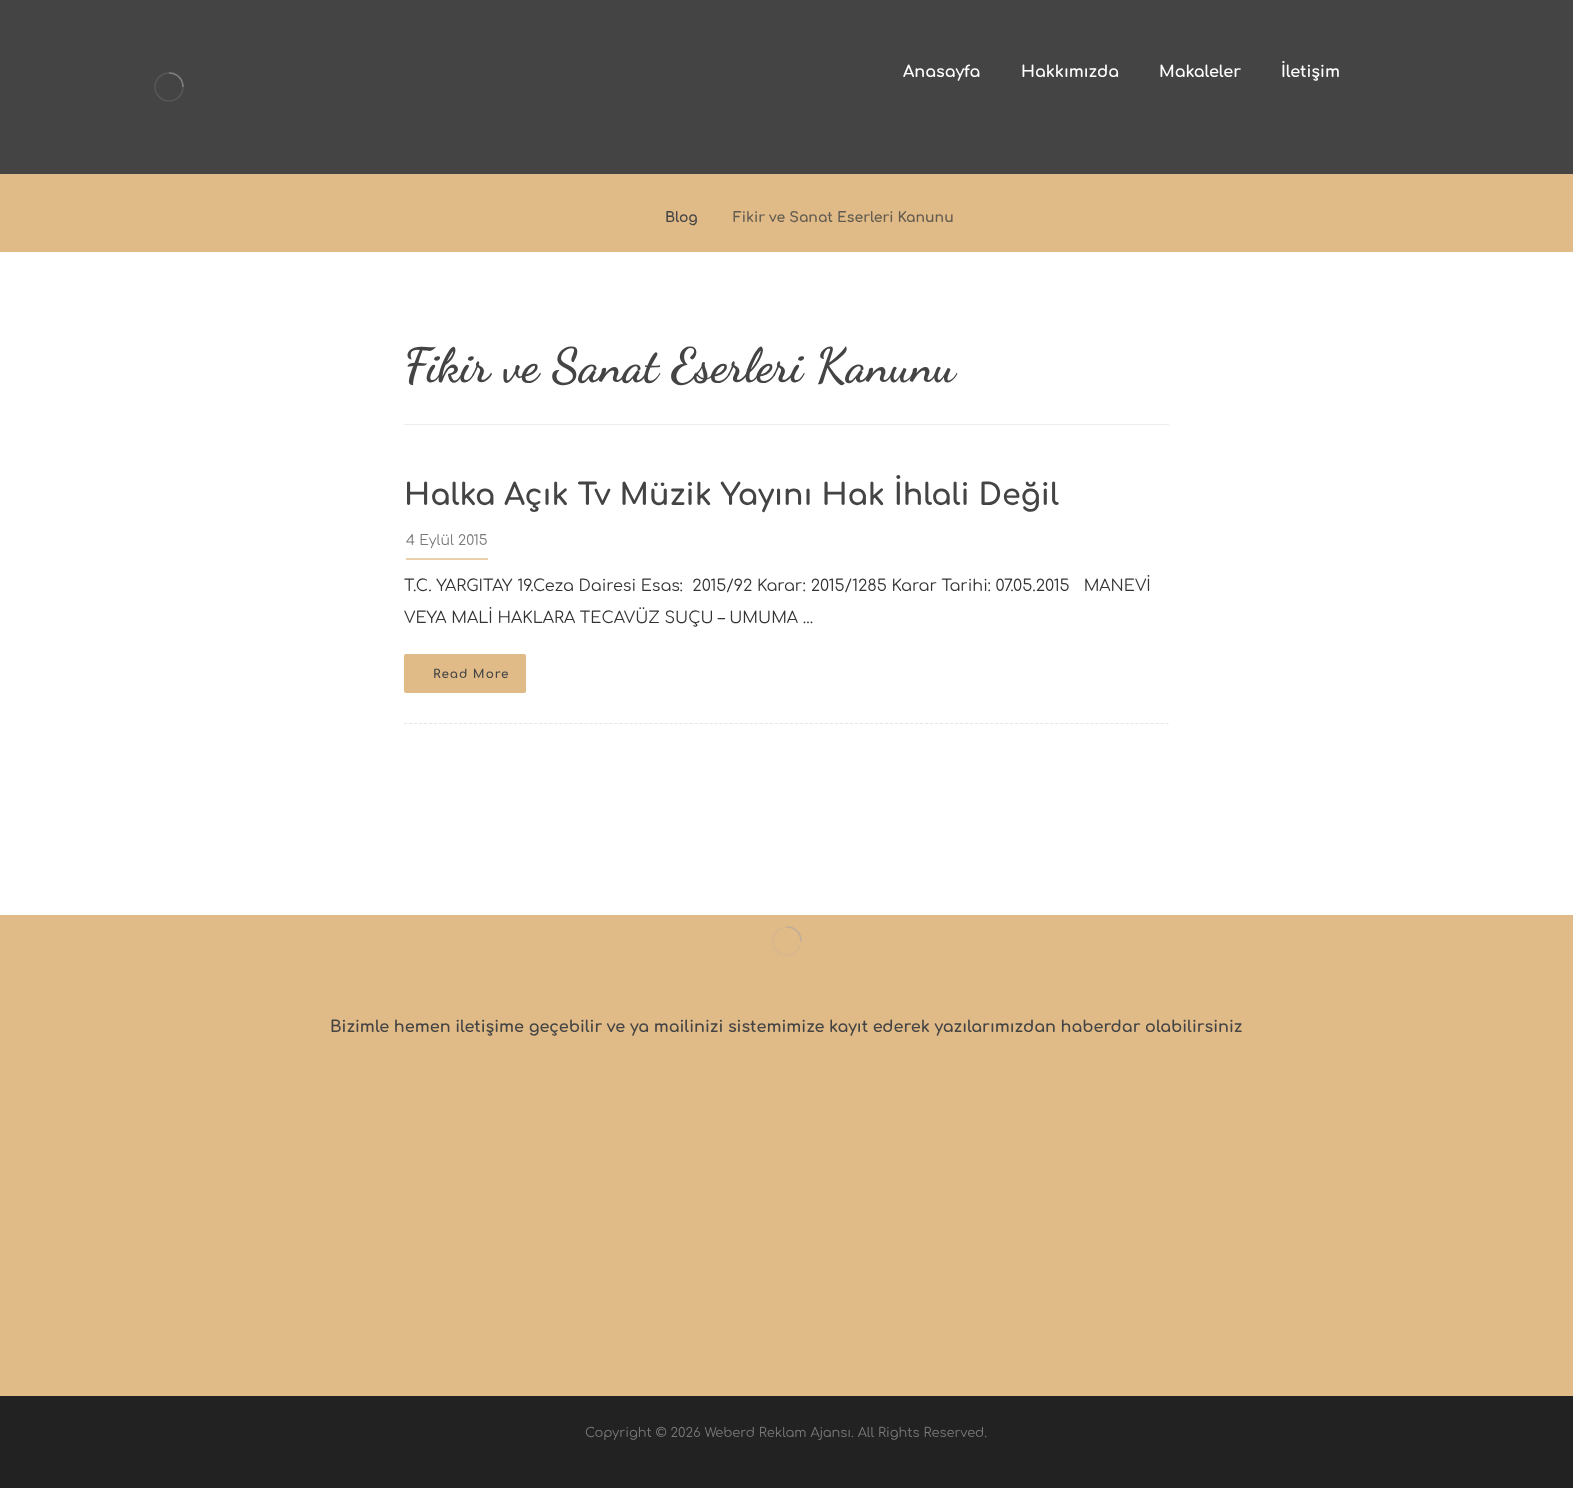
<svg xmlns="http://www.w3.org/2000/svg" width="1573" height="1488">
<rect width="100%" height="100%" fill="#e1bb87"/>
<rect y="252" width="1573" height="663" fill="#fff"/>
<rect width="1573" height="174" fill="#444"/>
<circle cx="169" cy="87" r="14" fill="none" stroke="#565656" stroke-width="1.6"/>
<path d="M183 87c0-8-6-14-14-14" fill="none" stroke="#7f7f7f" stroke-width="1.6"/>
<text x="903" y="77" style="font-family:Comfortaa;font-size:16px;font-weight:bold;fill:#fff">Anasayfa</text>
<text x="1021" y="77" style="font-family:Comfortaa;font-size:16px;font-weight:bold;fill:#fff">Hakkımızda</text>
<text x="1159" y="77" style="font-family:Comfortaa;font-size:16px;font-weight:bold;fill:#fff">Makaleler</text>
<text x="1281" y="77" style="font-family:Comfortaa;font-size:16px;font-weight:bold;fill:#fff">İletişim</text>
<text x="665" y="222" style="font-family:Comfortaa;font-size:14px;font-weight:bold;fill:#444">Blog</text>
<text x="733" y="222" style="font-family:Comfortaa;font-size:14px;font-weight:bold;fill:#635c51">Fikir ve Sanat Eserleri Kanunu</text>
<rect x="404" y="424" width="765" height="1" fill="#ededed"/>
<text x="404" y="381" word-spacing="0.5" style="font-family:Dancing Script;font-size:48px;font-weight:bold;fill:#444">Fikir ve Sanat Eserleri Kanunu</text>
<path d="M404 723.5h765" fill="none" stroke="#e5e5e5" stroke-dasharray="3 2.01"/>
<text x="404" y="505" style="font-family:Comfortaa;font-size:30px;font-weight:bold;fill:#444">Halka Açık Tv Müzik Yayını Hak İhlali Değil</text>
<rect x="406" y="558" width="82" height="2" fill="#eacfab"/>
<text x="406" y="545" style="font-family:Comfortaa;font-size:14px;fill:#7a7a7a">4 Eylül 2015</text>
<text x="404" y="591" style="font-family:Comfortaa;font-size:16px;fill:#333" xml:space="preserve">T.C. YARGITAY 19.Ceza Dairesi Esas:  2015/92 Karar: 2015/1285 Karar Tarihi: 07.05.2015   MANEVİ</text>
<text x="404" y="623" style="font-family:Comfortaa;font-size:16px;fill:#333">VEYA MALİ HAKLARA TECAVÜZ SUÇU – UMUMA ...</text>
<rect x="404" y="654" width="122" height="39" rx="2" fill="#e1bb87"/>
<text x="433" y="678" style="font-family:Comfortaa;font-size:12px;font-weight:bold;letter-spacing:1px;fill:#444">Read More</text>
<circle cx="787" cy="941" r="14" fill="none" stroke="#d7b78d" stroke-width="1.6"/>
<path d="M801 941c0-8-6-14-14-14" fill="none" stroke="#beaf9a" stroke-width="1.6"/>
<text x="330" y="1032" style="font-family:Comfortaa;font-size:16px;font-weight:bold;fill:#444">Bizimle hemen iletişime geçebilir ve ya mailinizi sistemimize kayıt ederek yazılarımızdan haberdar olabilirsiniz</text>
<rect y="1396" width="1573" height="92" fill="#222"/>
<text x="585" y="1437" style="font-family:Comfortaa;font-size:13px;fill:#7a7a7a">Copyright © 2026 Weberd Reklam Ajansı. All Rights Reserved.</text>
</svg>
